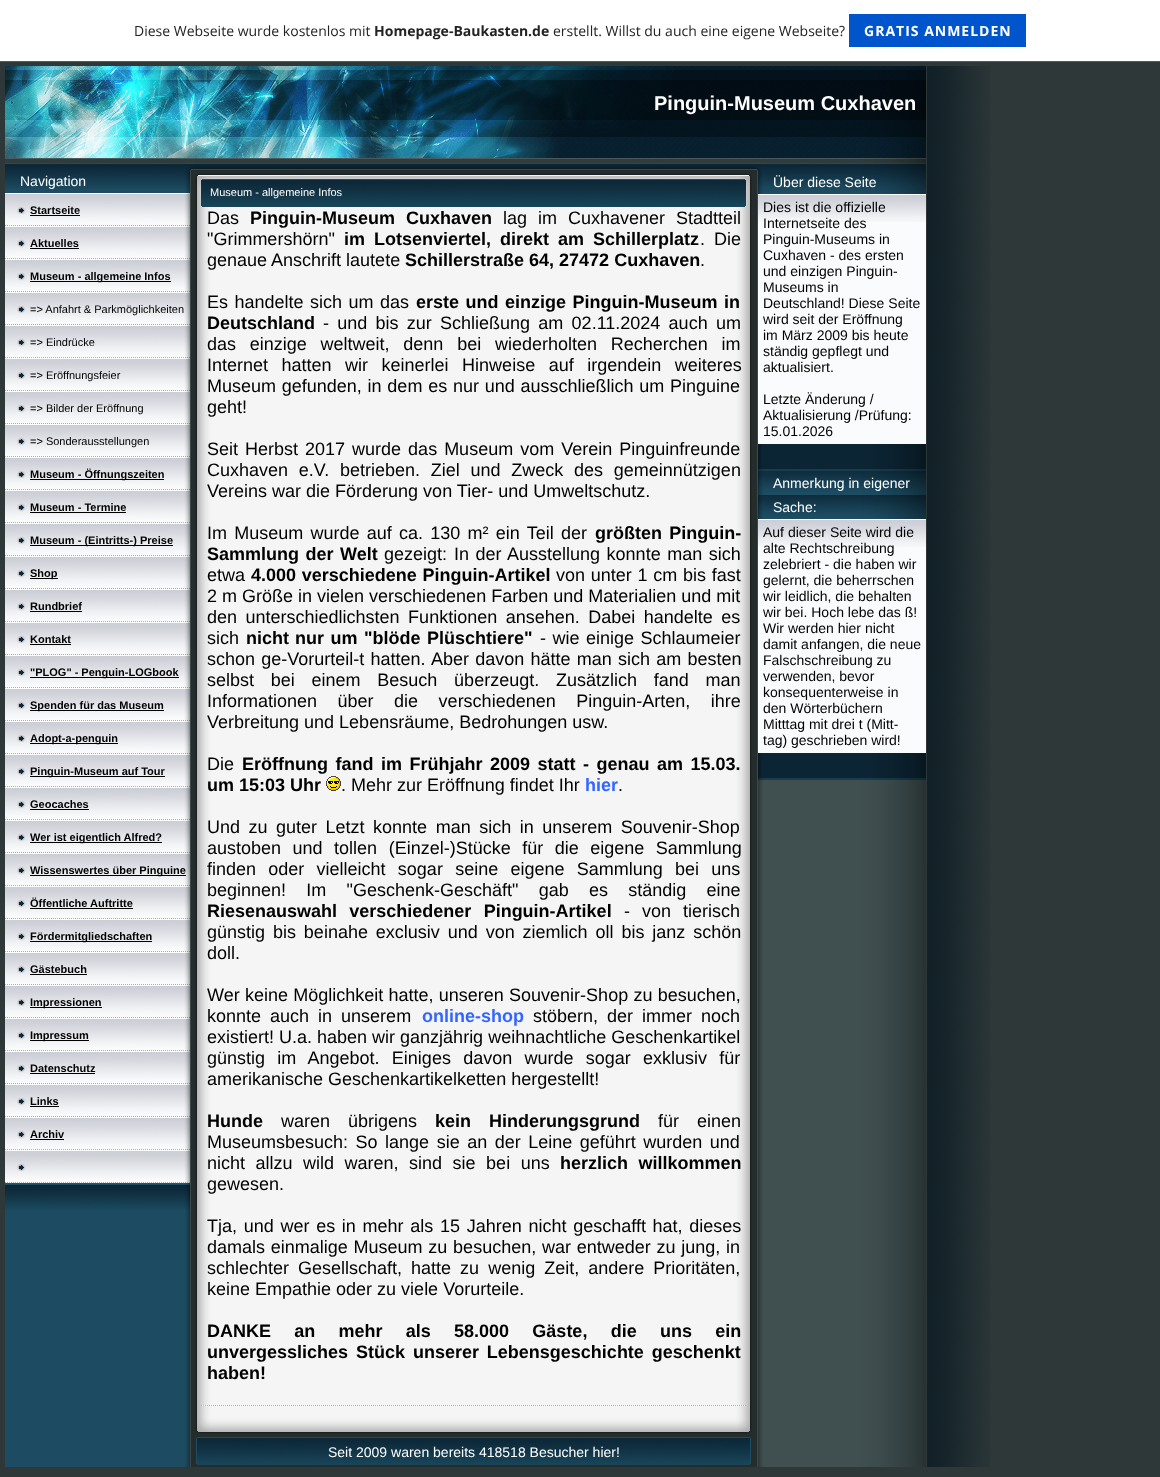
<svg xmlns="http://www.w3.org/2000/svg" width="1160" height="1477">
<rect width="100%" height="100%" fill="#2e3839"/>
<rect width="1160" height="61" fill="#fff"/>
<rect y="61" width="1160" height="1" fill="#5a5a5a"/>
<text x="134" y="36" style="font-family:Open Sans;font-size:14px;fill:#232323">Diese Webseite wurde kostenlos mit</text>
<text x="374" y="36" style="font-family:Open Sans;font-size:14px;font-weight:bold;fill:#232323">Homepage-Baukasten.de</text>
<text x="553" y="36" style="font-family:Open Sans;font-size:14px;fill:#232323">erstellt. Willst du auch eine eigene Webseite?</text>
<rect x="849" y="14" width="177" height="33" fill="#05c"/>
<text x="864" y="36" style="font-family:Open Sans;font-size:14px;font-weight:bold;letter-spacing:1px;fill:#fff">GRATIS ANMELDEN</text>
<image x="5" y="66" width="921" height="104" href="media/1.png"/>
<text x="654" y="110" style="font-family:Liberation Sans;font-size:20px;font-weight:bold;fill:#fff">Pinguin-Museum Cuxhaven</text>
<image x="5" y="189" width="185" height="1278" href="media/2.png"/>
<image x="5" y="170" width="185" height="19" href="media/3.png"/>
<text x="20" y="186" style="font-family:Liberation Sans;font-size:14px;fill:#fff">Navigation</text>
<image x="5" y="193" width="185" height="33" href="media/4.png"/>
<text x="30" y="214" style="font-family:Liberation Sans;font-size:11px;font-weight:bold;fill:#000">Startseite</text>
<rect x="30" y="215" width="50" height="1" fill="#000"/>
<image x="5" y="226" width="185" height="33" href="media/4.png"/>
<text x="30" y="247" style="font-family:Liberation Sans;font-size:11px;font-weight:bold;fill:#000">Aktuelles</text>
<rect x="30" y="248" width="49" height="1" fill="#000"/>
<image x="5" y="259" width="185" height="33" href="media/4.png"/>
<rect x="30" y="281" width="141" height="1" fill="#000"/>
<text x="30" y="280" style="font-family:Liberation Sans;font-size:11px;font-weight:bold;fill:#000">Museum - allgemeine Infos</text>
<image x="5" y="292" width="185" height="33" href="media/4.png"/>
<text x="30" y="313" style="font-family:Liberation Sans;font-size:11px;fill:#000">=&gt; Anfahrt &amp; Parkmöglichkeiten</text>
<image x="5" y="325" width="185" height="33" href="media/4.png"/>
<text x="30" y="346" style="font-family:Liberation Sans;font-size:11px;fill:#000">=&gt; Eindrücke</text>
<image x="5" y="358" width="185" height="33" href="media/4.png"/>
<text x="30" y="379" style="font-family:Liberation Sans;font-size:11px;fill:#000">=&gt; Eröffnungsfeier</text>
<image x="5" y="391" width="185" height="33" href="media/4.png"/>
<text x="30" y="412" style="font-family:Liberation Sans;font-size:11px;fill:#000">=&gt; Bilder der Eröffnung</text>
<image x="5" y="424" width="185" height="33" href="media/4.png"/>
<text x="30" y="445" style="font-family:Liberation Sans;font-size:11px;fill:#000">=&gt; Sonderausstellungen</text>
<image x="5" y="457" width="185" height="33" href="media/4.png"/>
<rect x="30" y="479" width="134" height="1" fill="#000"/>
<text x="30" y="478" style="font-family:Liberation Sans;font-size:11px;font-weight:bold;fill:#000">Museum - Öffnungszeiten</text>
<image x="5" y="490" width="185" height="33" href="media/4.png"/>
<text x="30" y="511" style="font-family:Liberation Sans;font-size:11px;font-weight:bold;fill:#000">Museum - Termine</text>
<rect x="30" y="512" width="96" height="1" fill="#000"/>
<image x="5" y="523" width="185" height="33" href="media/4.png"/>
<rect x="30" y="545" width="143" height="1" fill="#000"/>
<text x="30" y="544" style="font-family:Liberation Sans;font-size:11px;font-weight:bold;fill:#000">Museum - (Eintritts-) Preise</text>
<image x="5" y="556" width="185" height="33" href="media/4.png"/>
<rect x="30" y="578" width="28" height="1" fill="#000"/>
<text x="30" y="577" style="font-family:Liberation Sans;font-size:11px;font-weight:bold;fill:#000">Shop</text>
<image x="5" y="589" width="185" height="33" href="media/4.png"/>
<text x="30" y="610" style="font-family:Liberation Sans;font-size:11px;font-weight:bold;fill:#000">Rundbrief</text>
<rect x="30" y="611" width="52" height="1" fill="#000"/>
<image x="5" y="622" width="185" height="33" href="media/4.png"/>
<text x="30" y="643" style="font-family:Liberation Sans;font-size:11px;font-weight:bold;fill:#000">Kontakt</text>
<rect x="30" y="644" width="41" height="1" fill="#000"/>
<image x="5" y="655" width="185" height="33" href="media/4.png"/>
<rect x="30" y="677" width="149" height="1" fill="#000"/>
<text x="30" y="676" style="font-family:Liberation Sans;font-size:11px;font-weight:bold;fill:#000">"PLOG" - Penguin-LOGbook</text>
<image x="5" y="688" width="185" height="33" href="media/4.png"/>
<rect x="30" y="710" width="134" height="1" fill="#000"/>
<text x="30" y="709" style="font-family:Liberation Sans;font-size:11px;font-weight:bold;fill:#000">Spenden für das Museum</text>
<image x="5" y="721" width="185" height="33" href="media/4.png"/>
<rect x="30" y="743" width="88" height="1" fill="#000"/>
<text x="30" y="742" style="font-family:Liberation Sans;font-size:11px;font-weight:bold;fill:#000">Adopt-a-penguin</text>
<image x="5" y="754" width="185" height="33" href="media/4.png"/>
<rect x="30" y="776" width="135" height="1" fill="#000"/>
<text x="30" y="775" style="font-family:Liberation Sans;font-size:11px;font-weight:bold;fill:#000">Pinguin-Museum auf Tour</text>
<image x="5" y="787" width="185" height="33" href="media/4.png"/>
<text x="30" y="808" style="font-family:Liberation Sans;font-size:11px;font-weight:bold;fill:#000">Geocaches</text>
<rect x="30" y="809" width="59" height="1" fill="#000"/>
<image x="5" y="820" width="185" height="33" href="media/4.png"/>
<rect x="30" y="842" width="132" height="1" fill="#000"/>
<text x="30" y="841" style="font-family:Liberation Sans;font-size:11px;font-weight:bold;fill:#000">Wer ist eigentlich Alfred?</text>
<image x="5" y="853" width="185" height="33" href="media/4.png"/>
<rect x="30" y="875" width="156" height="1" fill="#000"/>
<text x="30" y="874" style="font-family:Liberation Sans;font-size:11px;font-weight:bold;fill:#000">Wissenswertes über Pinguine</text>
<image x="5" y="886" width="185" height="33" href="media/4.png"/>
<text x="30" y="907" style="font-family:Liberation Sans;font-size:11px;font-weight:bold;fill:#000">Öffentliche Auftritte</text>
<rect x="30" y="908" width="103" height="1" fill="#000"/>
<image x="5" y="919" width="185" height="33" href="media/4.png"/>
<rect x="30" y="941" width="122" height="1" fill="#000"/>
<text x="30" y="940" style="font-family:Liberation Sans;font-size:11px;font-weight:bold;fill:#000">Fördermitgliedschaften</text>
<image x="5" y="952" width="185" height="33" href="media/4.png"/>
<text x="30" y="973" style="font-family:Liberation Sans;font-size:11px;font-weight:bold;fill:#000">Gästebuch</text>
<rect x="30" y="974" width="57" height="1" fill="#000"/>
<image x="5" y="985" width="185" height="33" href="media/4.png"/>
<rect x="30" y="1007" width="72" height="1" fill="#000"/>
<text x="30" y="1006" style="font-family:Liberation Sans;font-size:11px;font-weight:bold;fill:#000">Impressionen</text>
<image x="5" y="1018" width="185" height="33" href="media/4.png"/>
<rect x="30" y="1040" width="59" height="1" fill="#000"/>
<text x="30" y="1039" style="font-family:Liberation Sans;font-size:11px;font-weight:bold;fill:#000">Impressum</text>
<image x="5" y="1051" width="185" height="33" href="media/4.png"/>
<text x="30" y="1072" style="font-family:Liberation Sans;font-size:11px;font-weight:bold;fill:#000">Datenschutz</text>
<rect x="30" y="1073" width="65" height="1" fill="#000"/>
<image x="5" y="1084" width="185" height="33" href="media/4.png"/>
<text x="30" y="1105" style="font-family:Liberation Sans;font-size:11px;font-weight:bold;fill:#000">Links</text>
<rect x="30" y="1106" width="29" height="1" fill="#000"/>
<image x="5" y="1117" width="185" height="33" href="media/4.png"/>
<text x="30" y="1138" style="font-family:Liberation Sans;font-size:11px;font-weight:bold;fill:#000">Archiv</text>
<rect x="30" y="1139" width="34" height="1" fill="#000"/>
<image x="5" y="1150" width="185" height="33" href="media/4.png"/>
<image x="5" y="1183" width="185" height="27" href="media/5.png"/>
<image x="190" y="170" width="568" height="38" href="media/6.png"/>
<text x="210" y="196" style="font-family:Liberation Sans;font-size:11px;fill:#fff">Museum - allgemeine Infos</text>
<image x="190" y="208" width="568" height="1197" href="media/7.png"/>
<text x="207" y="224" style="font-family:Liberation Sans;font-size:18px;fill:#000">Das</text>
<text x="250" y="224" word-spacing="6" style="font-family:Liberation Sans;font-size:18px;font-weight:bold;fill:#000">Pinguin-Museum Cuxhaven</text>
<text x="503" y="224" word-spacing="6" style="font-family:Liberation Sans;font-size:18px;fill:#000">lag im Cuxhavener Stadtteil</text>
<text x="207" y="245" style="font-family:Liberation Sans;font-size:18px;fill:#000">"Grimmershörn"</text>
<text x="344" y="245" word-spacing="4" style="font-family:Liberation Sans;font-size:18px;font-weight:bold;fill:#000">im Lotsenviertel, direkt am Schillerplatz</text>
<text x="700" y="245" word-spacing="4" style="font-family:Liberation Sans;font-size:18px;fill:#000">. Die</text>
<text x="207" y="266" style="font-family:Liberation Sans;font-size:18px;fill:#000">genaue Anschrift lautete</text>
<text x="405" y="266" style="font-family:Liberation Sans;font-size:18px;font-weight:bold;fill:#000">Schillerstraße 64, 27472 Cuxhaven</text>
<text x="700" y="266" style="font-family:Liberation Sans;font-size:18px;fill:#000">.</text>
<text x="207" y="308" word-spacing="1.5" style="font-family:Liberation Sans;font-size:18px;fill:#000">Es handelte sich um das</text>
<text x="416" y="308" word-spacing="1.5" style="font-family:Liberation Sans;font-size:18px;font-weight:bold;fill:#000">erste und einzige Pinguin-Museum in</text>
<text x="207" y="329" style="font-family:Liberation Sans;font-size:18px;font-weight:bold;fill:#000">Deutschland</text>
<text x="323" y="329" word-spacing="3.25" style="font-family:Liberation Sans;font-size:18px;fill:#000">- und bis zur Schließung am 02.11.2024 auch um</text>
<text x="207" y="350" word-spacing="8.75" style="font-family:Liberation Sans;font-size:18px;fill:#000">das einzige weltweit, denn bei wiederholten Recherchen im</text>
<text x="207" y="371" word-spacing="8.5" style="font-family:Liberation Sans;font-size:18px;fill:#000">Internet hatten wir keinerlei Hinweise auf irgendein weiteres</text>
<text x="207" y="392" word-spacing="0.75" style="font-family:Liberation Sans;font-size:18px;fill:#000">Museum gefunden, in dem es nur und ausschließlich um Pinguine</text>
<text x="207" y="413" style="font-family:Liberation Sans;font-size:18px;fill:#000">geht!</text>
<text x="207" y="455" word-spacing="2" style="font-family:Liberation Sans;font-size:18px;fill:#000">Seit Herbst 2017 wurde das Museum vom Verein Pinguinfreunde</text>
<text x="207" y="476" word-spacing="5.75" style="font-family:Liberation Sans;font-size:18px;fill:#000">Cuxhaven e.V. betrieben. Ziel und Zweck des gemeinnützigen</text>
<text x="207" y="497" style="font-family:Liberation Sans;font-size:18px;fill:#000">Vereins war die Förderung von Tier- und Umweltschutz.</text>
<text x="207" y="539" word-spacing="2.25" style="font-family:Liberation Sans;font-size:18px;fill:#000">Im Museum wurde auf ca. 130 m² ein Teil der</text>
<text x="595" y="539" word-spacing="2.25" style="font-family:Liberation Sans;font-size:18px;font-weight:bold;fill:#000">größten Pinguin-</text>
<text x="207" y="560" word-spacing="1.5" style="font-family:Liberation Sans;font-size:18px;font-weight:bold;fill:#000">Sammlung der Welt</text>
<text x="384" y="560" style="font-family:Liberation Sans;font-size:18px;fill:#000">gezeigt:</text>
<text x="454" y="560" word-spacing="1.5" style="font-family:Liberation Sans;font-size:18px;fill:#000">In der Ausstellung konnte man sich</text>
<text x="207" y="581" style="font-family:Liberation Sans;font-size:18px;fill:#000">etwa</text>
<text x="251" y="581" word-spacing="0.75" style="font-family:Liberation Sans;font-size:18px;font-weight:bold;fill:#000">4.000 verschiedene Pinguin-Artikel</text>
<text x="556" y="581" word-spacing="0.75" style="font-family:Liberation Sans;font-size:18px;fill:#000">von unter 1 cm bis fast</text>
<text x="207" y="602" style="font-family:Liberation Sans;font-size:18px;fill:#000">2 m Größe in vielen verschiedenen Farben und Materialien und mit</text>
<text x="207" y="623" word-spacing="3.5" style="font-family:Liberation Sans;font-size:18px;fill:#000">den unterschiedlichsten Funktionen ansehen. Dabei handelte es</text>
<text x="207" y="644" style="font-family:Liberation Sans;font-size:18px;fill:#000">sich</text>
<text x="246" y="644" style="font-family:Liberation Sans;font-size:18px;font-weight:bold;fill:#000">nicht</text>
<text x="295" y="644" word-spacing="1.5" style="font-family:Liberation Sans;font-size:18px;font-weight:bold;fill:#000">nur um "blöde Plüschtiere"</text>
<text x="540" y="644" word-spacing="1.5" style="font-family:Liberation Sans;font-size:18px;fill:#000">- wie einige Schlaumeier</text>
<text x="207" y="665" word-spacing="1.25" style="font-family:Liberation Sans;font-size:18px;fill:#000">schon ge-Vorurteil-t hatten. Aber davon hätte man sich am besten</text>
<text x="207" y="686" word-spacing="11.75" style="font-family:Liberation Sans;font-size:18px;fill:#000">selbst bei einem Besuch überzeugt. Zusätzlich fand man</text>
<text x="207" y="707" word-spacing="15.5" style="font-family:Liberation Sans;font-size:18px;fill:#000">Informationen über die verschiedenen Pinguin-Arten, ihre</text>
<text x="207" y="728" style="font-family:Liberation Sans;font-size:18px;fill:#000">Verbreitung und Lebensräume, Bedrohungen usw.</text>
<text x="207" y="770" style="font-family:Liberation Sans;font-size:18px;fill:#000">Die</text>
<text x="242" y="770" word-spacing="2.5" style="font-family:Liberation Sans;font-size:18px;font-weight:bold;fill:#000">Eröffnung fand im Frühjahr 2009 statt - genau am 15.03.</text>
<text x="207" y="791" style="font-family:Liberation Sans;font-size:18px;font-weight:bold;fill:#000">um 15:03 Uhr</text>
<image x="326" y="776" width="15" height="15" href="media/8.png"/>
<text x="341" y="791" style="font-family:Liberation Sans;font-size:18px;fill:#000">. Mehr zur Eröffnung findet Ihr</text>
<text x="585" y="791" style="font-family:Liberation Sans;font-size:18px;font-weight:bold;fill:#36f">hier</text>
<text x="618" y="791" style="font-family:Liberation Sans;font-size:18px;fill:#000">.</text>
<text x="207" y="833" word-spacing="3.5" style="font-family:Liberation Sans;font-size:18px;fill:#000">Und zu guter Letzt konnte man sich in unserem Souvenir-Shop</text>
<text x="207" y="854" word-spacing="6.5" style="font-family:Liberation Sans;font-size:18px;fill:#000">austoben und tollen (Einzel-)Stücke für die eigene Sammlung</text>
<text x="207" y="875" word-spacing="7.25" style="font-family:Liberation Sans;font-size:18px;fill:#000">finden oder vielleicht sogar seine eigene Sammlung bei uns</text>
<text x="207" y="896" word-spacing="15.25" style="font-family:Liberation Sans;font-size:18px;fill:#000">beginnen! Im "Geschenk-Geschäft" gab es ständig eine</text>
<text x="207" y="917" word-spacing="7.25" style="font-family:Liberation Sans;font-size:18px;font-weight:bold;fill:#000">Riesenauswahl verschiedener Pinguin-Artikel</text>
<text x="624" y="917" word-spacing="7" style="font-family:Liberation Sans;font-size:18px;fill:#000">- von tierisch</text>
<text x="207" y="938" word-spacing="2.9" style="font-family:Liberation Sans;font-size:18px;fill:#000">günstig bis beinahe exclusiv und von ziemlich oll bis janz schön</text>
<text x="207" y="959" style="font-family:Liberation Sans;font-size:18px;fill:#000">doll.</text>
<text x="207" y="1001" word-spacing="0.25" style="font-family:Liberation Sans;font-size:18px;fill:#000">Wer keine Möglichkeit hatte, unseren Souvenir-Shop zu besuchen,</text>
<text x="207" y="1022" word-spacing="4" style="font-family:Liberation Sans;font-size:18px;fill:#000">konnte auch in unserem</text>
<text x="422" y="1022" style="font-family:Liberation Sans;font-size:18px;font-weight:bold;fill:#36f">online-shop</text>
<text x="533" y="1022" word-spacing="4" style="font-family:Liberation Sans;font-size:18px;fill:#000">stöbern, der immer noch</text>
<text x="207" y="1043" style="font-family:Liberation Sans;font-size:18px;fill:#000">existiert! U.a. haben wir ganzjährig weihnachtliche Geschenkartikel</text>
<text x="207" y="1064" word-spacing="7.25" style="font-family:Liberation Sans;font-size:18px;fill:#000">günstig im Angebot. Einiges davon wurde sogar exklusiv für</text>
<text x="207" y="1085" style="font-family:Liberation Sans;font-size:18px;fill:#000">amerikanische Geschenkartikelketten hergestellt!</text>
<text x="207" y="1127" style="font-family:Liberation Sans;font-size:18px;font-weight:bold;fill:#000">Hunde</text>
<text x="281" y="1127" word-spacing="13" style="font-family:Liberation Sans;font-size:18px;fill:#000">waren übrigens</text>
<text x="435" y="1127" word-spacing="13" style="font-family:Liberation Sans;font-size:18px;font-weight:bold;fill:#000">kein Hinderungsgrund</text>
<text x="658" y="1127" word-spacing="13" style="font-family:Liberation Sans;font-size:18px;fill:#000">für einen</text>
<text x="207" y="1148" word-spacing="2.5" style="font-family:Liberation Sans;font-size:18px;fill:#000">Museumsbesuch: So lange sie an der Leine geführt wurden und</text>
<text x="207" y="1169" word-spacing="5.5" style="font-family:Liberation Sans;font-size:18px;fill:#000">nicht allzu wild waren, sind sie bei uns</text>
<text x="560" y="1169" word-spacing="5.5" style="font-family:Liberation Sans;font-size:18px;font-weight:bold;fill:#000">herzlich willkommen</text>
<text x="207" y="1190" style="font-family:Liberation Sans;font-size:18px;fill:#000">gewesen.</text>
<text x="207" y="1232" word-spacing="1.7" style="font-family:Liberation Sans;font-size:18px;fill:#000">Tja, und wer es in mehr als 15 Jahren nicht geschafft hat, dieses</text>
<text x="207" y="1253" word-spacing="0.75" style="font-family:Liberation Sans;font-size:18px;fill:#000">damals einmalige Museum zu besuchen, war entweder zu jung, in</text>
<text x="207" y="1274" word-spacing="4" style="font-family:Liberation Sans;font-size:18px;fill:#000">schlechter Gesellschaft, hatte zu wenig Zeit, andere Prioritäten,</text>
<text x="207" y="1295" style="font-family:Liberation Sans;font-size:18px;fill:#000">keine Empathie oder zu viele Vorurteile.</text>
<text x="207" y="1337" word-spacing="18.25" style="font-family:Liberation Sans;font-size:18px;font-weight:bold;fill:#000">DANKE an mehr als 58.000 Gäste, die uns ein</text>
<text x="207" y="1358" word-spacing="2.9" style="font-family:Liberation Sans;font-size:18px;font-weight:bold;fill:#000">unvergessliches Stück unserer Lebensgeschichte geschenkt</text>
<text x="207" y="1379" style="font-family:Liberation Sans;font-size:18px;font-weight:bold;fill:#000">haben!</text>
<image x="190" y="1405" width="568" height="31" href="media/9.png"/>
<image x="190" y="1436" width="568" height="31" href="media/10.png"/>
<text x="328" y="1457" style="font-family:Liberation Sans;font-size:14px;fill:#fff">Seit 2009 waren bereits 418518 Besucher hier!</text>
<image x="759" y="780" width="167" height="687" href="media/11.png"/>
<image x="758" y="170" width="168" height="24" href="media/12.png"/>
<text x="773" y="187" style="font-family:Liberation Sans;font-size:14px;fill:#fff">Über diese Seite</text>
<rect x="758" y="222" width="168" height="222" fill="#fafbfc"/>
<image x="758" y="194" width="168" height="28" href="media/13.png"/>
<text x="763" y="212" style="font-family:Liberation Sans;font-size:14px;fill:#000">Dies ist die offizielle</text>
<text x="763" y="228" style="font-family:Liberation Sans;font-size:14px;fill:#000">Internetseite des</text>
<text x="763" y="244" style="font-family:Liberation Sans;font-size:14px;fill:#000">Pinguin-Museums in</text>
<text x="763" y="260" style="font-family:Liberation Sans;font-size:14px;fill:#000">Cuxhaven - des ersten</text>
<text x="763" y="276" style="font-family:Liberation Sans;font-size:14px;fill:#000">und einzigen Pinguin-</text>
<text x="763" y="292" style="font-family:Liberation Sans;font-size:14px;fill:#000">Museums in</text>
<text x="763" y="308" style="font-family:Liberation Sans;font-size:14px;fill:#000">Deutschland! Diese Seite</text>
<text x="763" y="324" style="font-family:Liberation Sans;font-size:14px;fill:#000">wird seit der Eröffnung</text>
<text x="763" y="340" style="font-family:Liberation Sans;font-size:14px;fill:#000">im März 2009 bis heute</text>
<text x="763" y="356" style="font-family:Liberation Sans;font-size:14px;fill:#000">ständig gepflegt und</text>
<text x="763" y="372" style="font-family:Liberation Sans;font-size:14px;fill:#000">aktualisiert.</text>
<text x="763" y="404" style="font-family:Liberation Sans;font-size:14px;fill:#000">Letzte Änderung /</text>
<text x="763" y="420" style="font-family:Liberation Sans;font-size:14px;fill:#000">Aktualisierung /Prüfung:</text>
<text x="763" y="436" style="font-family:Liberation Sans;font-size:14px;fill:#000">15.01.2026</text>
<image x="758" y="444" width="168" height="27" href="media/14.png"/>
<image x="758" y="471" width="168" height="48" href="media/15.png"/>
<text x="773" y="488" style="font-family:Liberation Sans;font-size:14px;fill:#fff">Anmerkung in eigener</text>
<text x="773" y="512" style="font-family:Liberation Sans;font-size:14px;fill:#fff">Sache:</text>
<rect x="758" y="547" width="168" height="206" fill="#fafbfc"/>
<image x="758" y="519" width="168" height="28" href="media/13.png"/>
<text x="763" y="537" style="font-family:Liberation Sans;font-size:14px;fill:#000">Auf dieser Seite wird die</text>
<text x="763" y="553" style="font-family:Liberation Sans;font-size:14px;fill:#000">alte Rechtschreibung</text>
<text x="763" y="569" style="font-family:Liberation Sans;font-size:14px;fill:#000">zelebriert - die haben wir</text>
<text x="763" y="585" style="font-family:Liberation Sans;font-size:14px;fill:#000">gelernt, die beherrschen</text>
<text x="763" y="601" style="font-family:Liberation Sans;font-size:14px;fill:#000">wir leidlich, die behalten</text>
<text x="763" y="617" style="font-family:Liberation Sans;font-size:14px;fill:#000">wir bei. Hoch lebe das ß!</text>
<text x="763" y="633" style="font-family:Liberation Sans;font-size:14px;fill:#000">Wir werden hier nicht</text>
<text x="763" y="649" style="font-family:Liberation Sans;font-size:14px;fill:#000">damit anfangen, die neue</text>
<text x="763" y="665" style="font-family:Liberation Sans;font-size:14px;fill:#000">Falschschreibung zu</text>
<text x="763" y="681" style="font-family:Liberation Sans;font-size:14px;fill:#000">verwenden, bevor</text>
<text x="763" y="697" style="font-family:Liberation Sans;font-size:14px;fill:#000">konsequenterweise in</text>
<text x="763" y="713" style="font-family:Liberation Sans;font-size:14px;fill:#000">den Wörterbüchern</text>
<text x="763" y="729" style="font-family:Liberation Sans;font-size:14px;fill:#000">Mitttag mit drei t (Mitt-</text>
<text x="763" y="745" style="font-family:Liberation Sans;font-size:14px;fill:#000">tag) geschrieben wird!</text>
<image x="758" y="753" width="168" height="27" href="media/14.png"/>
<image x="927" y="66" width="63" height="1401" href="media/16.png"/>
</svg>
